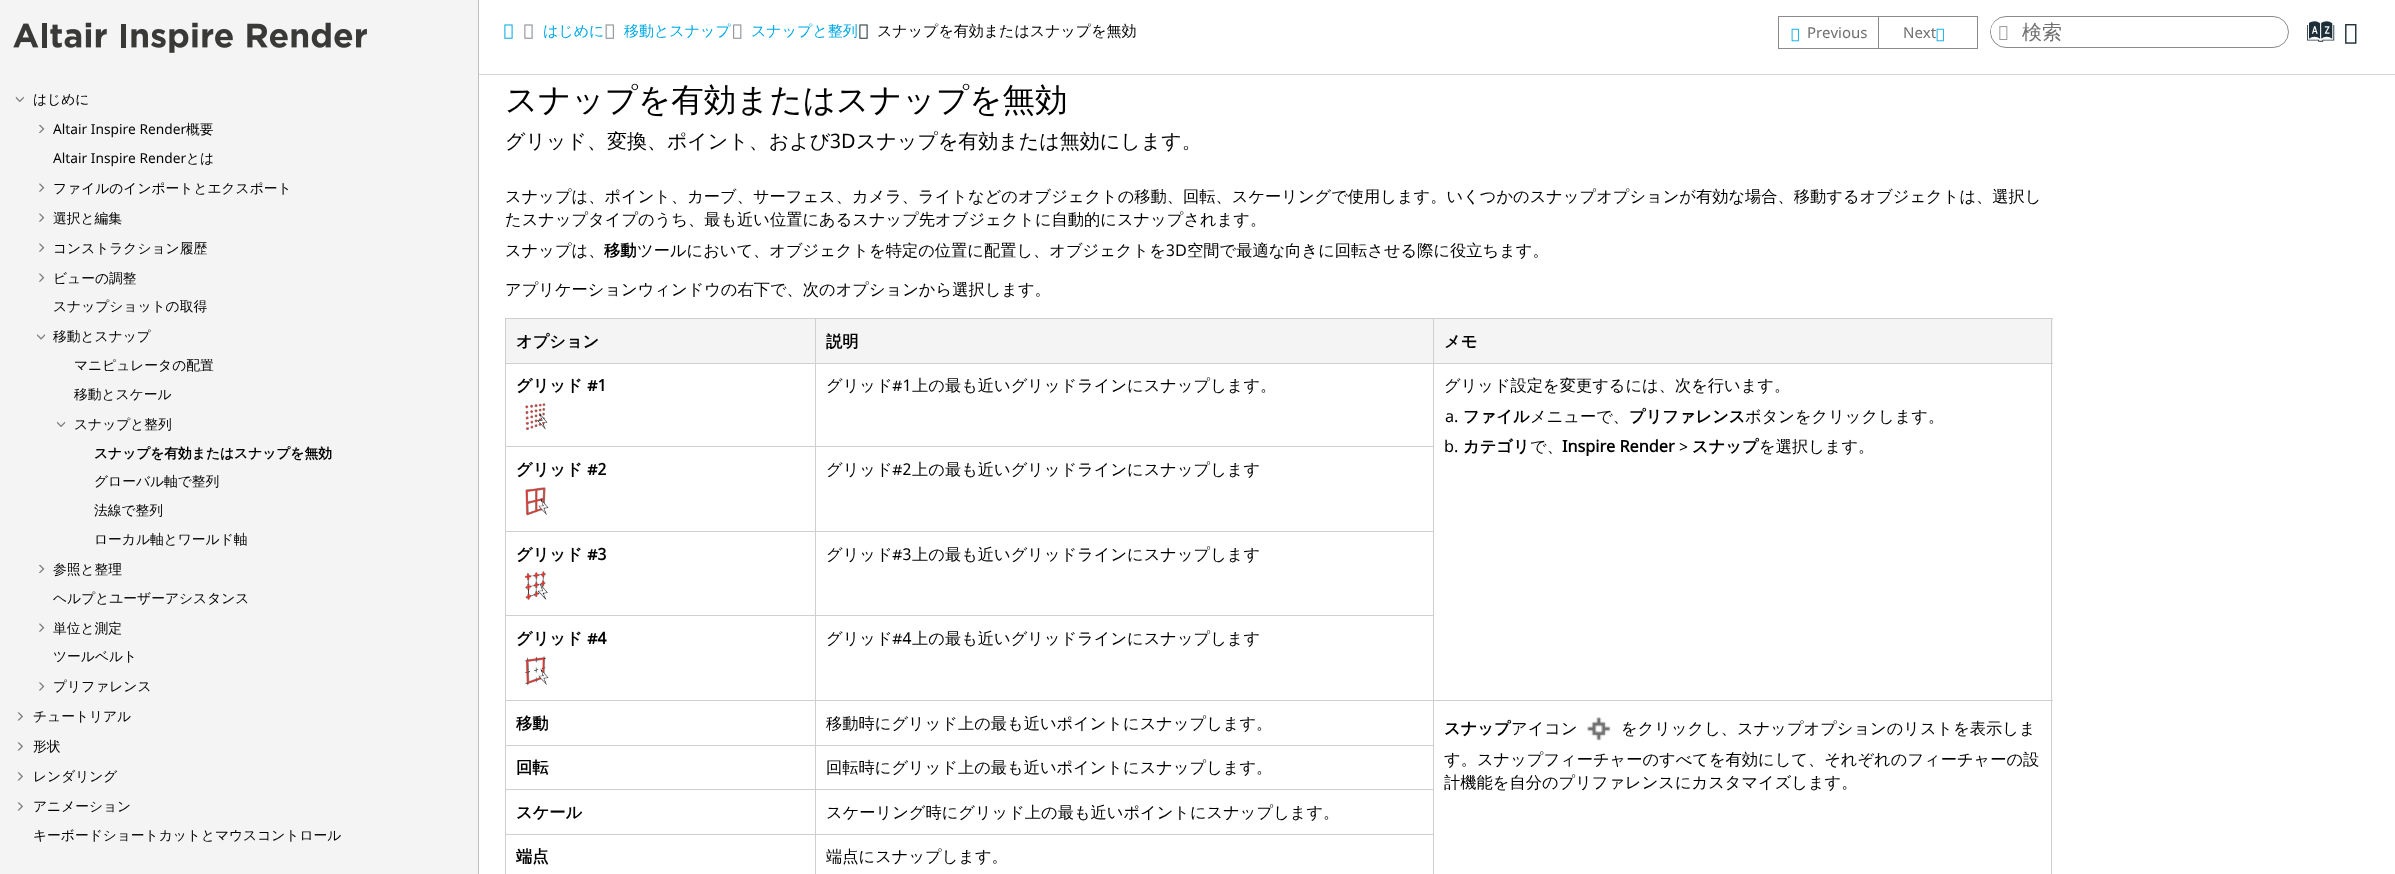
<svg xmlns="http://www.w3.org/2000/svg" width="2395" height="874">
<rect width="100%" height="100%" fill="#fff"/>
<rect width="478" height="874" fill="#f4f4f4"/>
<rect x="478" width="1" height="874" fill="#c0c0c0"/>
<image x="13" y="22" width="354" height="31" href="media/1.png"/>
<image x="15" y="96" width="9" height="7" href="media/2.png"/>
<text x="33" y="104" style="font-family:WenQuanYi Zen Hei;font-size:13.75px;font-weight:500;fill:#000">はじめに</text>
<image x="38" y="124" width="7" height="9" href="media/3.png"/>
<text x="53" y="134" style="font-family:Noto Sans;font-size:13.75px;fill:#000">Altair Inspire Render</text>
<text x="186" y="134" style="font-family:WenQuanYi Zen Hei;font-size:13.75px;font-weight:500;fill:#000">概要</text>
<text x="53" y="163" style="font-family:Noto Sans;font-size:13.75px;fill:#000">Altair Inspire Render</text>
<text x="186" y="163" style="font-family:WenQuanYi Zen Hei;font-size:13.75px;font-weight:500;fill:#000">とは</text>
<image x="38" y="183" width="7" height="9" href="media/4.png"/>
<text x="53" y="193" style="font-family:WenQuanYi Zen Hei;font-size:13.75px;font-weight:500;fill:#000">ファイルのインポートとエクスポート</text>
<image x="38" y="213" width="7" height="9" href="media/4.png"/>
<text x="53" y="223" style="font-family:WenQuanYi Zen Hei;font-size:13.75px;font-weight:500;fill:#000">選択と編集</text>
<image x="38" y="243" width="7" height="9" href="media/4.png"/>
<text x="53" y="253" style="font-family:WenQuanYi Zen Hei;font-size:13.75px;font-weight:500;fill:#000">コンストラクション履歴</text>
<image x="38" y="273" width="7" height="9" href="media/4.png"/>
<text x="53" y="283" style="font-family:WenQuanYi Zen Hei;font-size:13.75px;font-weight:500;fill:#000">ビューの調整</text>
<text x="53" y="311" style="font-family:WenQuanYi Zen Hei;font-size:13.75px;font-weight:500;fill:#000">スナップショットの取得</text>
<image x="37" y="334" width="9" height="6" href="media/5.png"/>
<text x="53" y="341" style="font-family:WenQuanYi Zen Hei;font-size:13.75px;font-weight:500;fill:#000">移動とスナップ</text>
<text x="74" y="370" style="font-family:WenQuanYi Zen Hei;font-size:13.75px;font-weight:500;fill:#000">マニピュレータの配置</text>
<text x="74" y="399" style="font-family:WenQuanYi Zen Hei;font-size:13.75px;font-weight:500;fill:#000">移動とスケール</text>
<image x="57" y="421" width="9" height="6" href="media/6.png"/>
<text x="74" y="429" style="font-family:WenQuanYi Zen Hei;font-size:13.75px;font-weight:500;fill:#000">スナップと整列</text>
<text x="94" y="458" style="font-family:WenQuanYi Zen Hei;font-size:13.75px;font-weight:bold;fill:#000">スナップを有効またはスナップを無効</text>
<text x="94" y="486" style="font-family:WenQuanYi Zen Hei;font-size:13.75px;font-weight:500;fill:#000">グローバル軸で整列</text>
<text x="94" y="515" style="font-family:WenQuanYi Zen Hei;font-size:13.75px;font-weight:500;fill:#000">法線で整列</text>
<text x="94" y="544" style="font-family:WenQuanYi Zen Hei;font-size:13.75px;font-weight:500;fill:#000">ローカル軸とワールド軸</text>
<image x="38" y="564" width="7" height="9" href="media/3.png"/>
<text x="53" y="574" style="font-family:WenQuanYi Zen Hei;font-size:13.75px;font-weight:500;fill:#000">参照と整理</text>
<text x="53" y="603" style="font-family:WenQuanYi Zen Hei;font-size:13.75px;font-weight:500;fill:#000">ヘルプとユーザーアシスタンス</text>
<image x="38" y="623" width="7" height="9" href="media/4.png"/>
<text x="53" y="633" style="font-family:WenQuanYi Zen Hei;font-size:13.75px;font-weight:500;fill:#000">単位と測定</text>
<text x="53" y="661" style="font-family:WenQuanYi Zen Hei;font-size:13.75px;font-weight:500;fill:#000">ツールベルト</text>
<image x="38" y="682" width="7" height="9" href="media/7.png"/>
<text x="53" y="691" style="font-family:WenQuanYi Zen Hei;font-size:13.75px;font-weight:500;fill:#000">プリファレンス</text>
<image x="17" y="712" width="6" height="9" href="media/8.png"/>
<text x="33" y="721" style="font-family:WenQuanYi Zen Hei;font-size:13.75px;font-weight:500;fill:#000">チュートリアル</text>
<image x="17" y="742" width="6" height="9" href="media/8.png"/>
<text x="33" y="751" style="font-family:WenQuanYi Zen Hei;font-size:13.75px;font-weight:500;fill:#000">形状</text>
<image x="17" y="772" width="6" height="9" href="media/8.png"/>
<text x="33" y="781" style="font-family:WenQuanYi Zen Hei;font-size:13.75px;font-weight:500;fill:#000">レンダリング</text>
<image x="17" y="802" width="6" height="9" href="media/8.png"/>
<text x="33" y="811" style="font-family:WenQuanYi Zen Hei;font-size:13.75px;font-weight:500;fill:#000">アニメーション</text>
<text x="33" y="840" style="font-family:WenQuanYi Zen Hei;font-size:13.75px;font-weight:500;fill:#000">キーボードショートカットとマウスコントロール</text>
<rect x="479" y="74" width="1916" height="1" fill="#d8d8d8"/>
<image x="504" y="24" width="9" height="15" href="media/9.png"/>
<image x="524" y="24" width="9" height="15" href="media/10.png"/>
<text x="543" y="36" style="font-family:WenQuanYi Zen Hei;font-size:15px;font-weight:500;fill:#00aae6">はじめに</text>
<image x="605" y="24" width="9" height="15" href="media/11.png"/>
<text x="624" y="36" style="font-family:WenQuanYi Zen Hei;font-size:15px;font-weight:500;fill:#00aae6">移動とスナップ</text>
<image x="733" y="24" width="9" height="15" href="media/12.png"/>
<text x="751" y="36" style="font-family:WenQuanYi Zen Hei;font-size:15px;font-weight:500;fill:#00aae6">スナップと整列</text>
<image x="859" y="24" width="9" height="15" href="media/13.png"/>
<text x="877" y="36" style="font-family:WenQuanYi Zen Hei;font-size:15px;font-weight:500;fill:#000">スナップを有効またはスナップを無効</text>
<rect x="1778" y="16" width="100" height="1" fill="#8b8b8b"/>
<rect x="1778" y="48" width="100" height="1" fill="#8b8b8b"/>
<rect x="1778" y="16" width="1" height="33" fill="#8b8b8b"/>
<image x="1791" y="28" width="8" height="14" href="media/14.png"/>
<text x="1807" y="38" style="font-family:Noto Sans;font-size:15px;fill:#707070">Previous</text>
<rect x="1878.5" y="16.5" width="99" height="32" fill="none" stroke="#8b8b8b"/>
<text x="1903" y="38" style="font-family:Noto Sans;font-size:15px;fill:#707070">Next</text>
<image x="1936" y="28" width="8" height="14" href="media/14.png"/>
<rect x="1990.5" y="16.5" width="298" height="31" rx="15.5" fill="none" stroke="#8b8b8b"/>
<rect x="1991" y="19" width="25" height="24" rx="12" fill="#fff"/>
<image x="1999" y="26" width="9" height="14" href="media/15.png"/>
<text x="2022" y="39" style="font-family:WenQuanYi Zen Hei;font-size:20px;font-weight:500;fill:#707070">検索</text>
<text x="2310" y="45" style="font-family:Oxygen;font-size:29px;fill:#1d2e38">a</text>
<image x="2345" y="24" width="12" height="20" href="media/16.png"/>
<text x="505" y="111" style="font-family:WenQuanYi Zen Hei;font-size:32.5px;font-weight:500;fill:#000">スナップを有効またはスナップを無効</text>
<text x="505" y="148" style="font-family:WenQuanYi Zen Hei;font-size:20px;font-weight:500;fill:#000">グリッド、変換、ポイント、および</text>
<text x="830" y="148" style="font-family:Noto Sans;font-size:20px;fill:#000">3D</text>
<text x="856" y="148" style="font-family:WenQuanYi Zen Hei;font-size:20px;font-weight:500;fill:#000">スナップを有効または無効にします。</text>
<text x="505" y="202" style="font-family:WenQuanYi Zen Hei;font-size:16.25px;font-weight:500;fill:#000">スナップは、ポイント、カーブ、サーフェス、カメラ、ライトなどのオブジェクトの移動、回転、スケーリングで使用します。いくつかのスナップオプションが有効な場合、移動するオブジェクトは、選択し</text>
<text x="505" y="225" style="font-family:WenQuanYi Zen Hei;font-size:16.25px;font-weight:500;fill:#000">たスナップタイプのうち、最も近い位置にあるスナップ先オブジェクトに自動的にスナップされます。</text>
<text x="505" y="256" style="font-family:WenQuanYi Zen Hei;font-size:16.25px;font-weight:500;fill:#000">スナップは、</text>
<text x="604" y="256" style="font-family:WenQuanYi Zen Hei;font-size:16.25px;font-weight:bold;fill:#000">移動</text>
<text x="637" y="256" style="font-family:WenQuanYi Zen Hei;font-size:16.25px;font-weight:500;fill:#000">ツールにおいて、オブジェクトを特定の位置に配置し、オブジェクトを</text>
<text x="1166" y="256" style="font-family:Noto Sans;font-size:16.25px;fill:#000">3D</text>
<text x="1187" y="256" style="font-family:WenQuanYi Zen Hei;font-size:16.25px;font-weight:500;fill:#000">空間で最適な向きに回転させる際に役立ちます。</text>
<text x="505" y="295" style="font-family:WenQuanYi Zen Hei;font-size:16.25px;font-weight:500;fill:#000">アプリケーションウィンドウの右下で、次のオプションから選択します。</text>
<rect x="505" y="318" width="1548" height="1" fill="#cfcfcf"/>
<rect x="1434" y="319" width="619" height="44" fill="#f4f4f4"/>
<rect x="2051" y="318" width="1" height="556" fill="#cfcfcf"/>
<rect x="505" y="318" width="1" height="556" fill="#cfcfcf"/>
<rect x="506" y="319" width="309" height="44" fill="#f4f4f4"/>
<text x="516" y="347" style="font-family:WenQuanYi Zen Hei;font-size:16.25px;font-weight:bold;fill:#000">オプション</text>
<rect x="816" y="319" width="617" height="44" fill="#f4f4f4"/>
<rect x="1433" y="363" width="620" height="1" fill="#cfcfcf"/>
<rect x="815" y="446" width="619" height="1" fill="#cfcfcf"/>
<rect x="815" y="531" width="619" height="1" fill="#cfcfcf"/>
<rect x="815" y="615" width="619" height="1" fill="#cfcfcf"/>
<rect x="1433" y="700" width="620" height="1" fill="#cfcfcf"/>
<rect x="815" y="745" width="619" height="1" fill="#cfcfcf"/>
<rect x="815" y="789" width="619" height="1" fill="#cfcfcf"/>
<rect x="815" y="834" width="619" height="1" fill="#cfcfcf"/>
<rect x="1433" y="700" width="1" height="174" fill="#cfcfcf"/>
<rect x="815" y="700" width="619" height="1" fill="#cfcfcf"/>
<rect x="1433" y="363" width="1" height="338" fill="#cfcfcf"/>
<rect x="815" y="363" width="619" height="1" fill="#cfcfcf"/>
<rect x="815" y="834" width="1" height="40" fill="#cfcfcf"/>
<rect x="505" y="834" width="311" height="1" fill="#cfcfcf"/>
<rect x="815" y="789" width="1" height="46" fill="#cfcfcf"/>
<rect x="505" y="789" width="311" height="1" fill="#cfcfcf"/>
<rect x="815" y="745" width="1" height="45" fill="#cfcfcf"/>
<rect x="505" y="745" width="311" height="1" fill="#cfcfcf"/>
<rect x="815" y="700" width="1" height="46" fill="#cfcfcf"/>
<rect x="505" y="700" width="311" height="1" fill="#cfcfcf"/>
<rect x="815" y="615" width="1" height="86" fill="#cfcfcf"/>
<rect x="505" y="615" width="311" height="1" fill="#cfcfcf"/>
<rect x="815" y="531" width="1" height="85" fill="#cfcfcf"/>
<rect x="505" y="531" width="311" height="1" fill="#cfcfcf"/>
<rect x="815" y="446" width="1" height="87" fill="#cfcfcf"/>
<rect x="505" y="446" width="311" height="1" fill="#cfcfcf"/>
<rect x="815" y="363" width="1" height="85" fill="#cfcfcf"/>
<rect x="505" y="363" width="311" height="1" fill="#cfcfcf"/>
<rect x="815" y="318" width="1" height="46" fill="#cfcfcf"/>
<text x="826" y="347" style="font-family:WenQuanYi Zen Hei;font-size:16.25px;font-weight:bold;fill:#000">説明</text>
<rect x="1433" y="318" width="1" height="46" fill="#cfcfcf"/>
<text x="1444" y="347" style="font-family:WenQuanYi Zen Hei;font-size:16.25px;font-weight:bold;fill:#000">メモ</text>
<text x="516" y="391" style="font-family:WenQuanYi Zen Hei;font-size:16.25px;font-weight:bold;fill:#000">グリッド</text>
<text x="587" y="391" style="font-family:Noto Sans;font-size:16.25px;font-weight:bold;fill:#000">#1</text>
<image x="525" y="403" width="23" height="28" href="media/17.png"/>
<text x="826" y="391" style="font-family:WenQuanYi Zen Hei;font-size:16.25px;font-weight:500;fill:#000">グリッド</text>
<text x="892" y="391" style="font-family:Noto Sans;font-size:16.25px;fill:#000">#1</text>
<text x="912" y="391" style="font-family:WenQuanYi Zen Hei;font-size:16.25px;font-weight:500;fill:#000">上の最も近いグリッドラインにスナップします。</text>
<text x="1444" y="391" style="font-family:WenQuanYi Zen Hei;font-size:16.25px;font-weight:500;fill:#000">グリッド設定を変更するには、次を行います。</text>
<text x="1445" y="422" style="font-family:Noto Sans;font-size:16.25px;fill:#000">a.</text>
<text x="1463" y="422" style="font-family:WenQuanYi Zen Hei;font-size:16.25px;font-weight:bold;fill:#000">ファイル</text>
<text x="1530" y="422" style="font-family:WenQuanYi Zen Hei;font-size:16.25px;font-weight:500;fill:#000">メニューで、</text>
<text x="1629" y="422" style="font-family:WenQuanYi Zen Hei;font-size:16.25px;font-weight:bold;fill:#000">プリファレンス</text>
<text x="1745" y="422" style="font-family:WenQuanYi Zen Hei;font-size:16.25px;font-weight:500;fill:#000">ボタンをクリックします。</text>
<text x="1444" y="452" style="font-family:Noto Sans;font-size:16.25px;fill:#000">b.</text>
<text x="1463" y="452" style="font-family:WenQuanYi Zen Hei;font-size:16.25px;font-weight:bold;fill:#000">カテゴリ</text>
<text x="1530" y="452" style="font-family:WenQuanYi Zen Hei;font-size:16.25px;font-weight:500;fill:#000">で、</text>
<text x="1562" y="452" style="font-family:Noto Sans;font-size:16.25px;font-weight:bold;fill:#000">Inspire Render</text>
<text x="1679" y="452" style="font-family:Noto Sans;font-size:16.25px;fill:#000">&gt;</text>
<text x="1692" y="452" style="font-family:WenQuanYi Zen Hei;font-size:16.25px;font-weight:bold;fill:#000">スナップ</text>
<text x="1759" y="452" style="font-family:WenQuanYi Zen Hei;font-size:16.25px;font-weight:500;fill:#000">を選択します。</text>
<text x="516" y="475" style="font-family:WenQuanYi Zen Hei;font-size:16.25px;font-weight:bold;fill:#000">グリッド</text>
<text x="587" y="475" style="font-family:Noto Sans;font-size:16.25px;font-weight:bold;fill:#000">#2</text>
<image x="525" y="487" width="24" height="29" href="media/18.png"/>
<text x="826" y="475" style="font-family:WenQuanYi Zen Hei;font-size:16.25px;font-weight:500;fill:#000">グリッド</text>
<text x="892" y="475" style="font-family:Noto Sans;font-size:16.25px;fill:#000">#2</text>
<text x="912" y="475" style="font-family:WenQuanYi Zen Hei;font-size:16.25px;font-weight:500;fill:#000">上の最も近いグリッドラインにスナップします</text>
<text x="516" y="560" style="font-family:WenQuanYi Zen Hei;font-size:16.25px;font-weight:bold;fill:#000">グリッド</text>
<text x="587" y="560" style="font-family:Noto Sans;font-size:16.25px;font-weight:bold;fill:#000">#3</text>
<image x="524" y="571" width="24" height="29" href="media/19.png"/>
<text x="826" y="560" style="font-family:WenQuanYi Zen Hei;font-size:16.25px;font-weight:500;fill:#000">グリッド</text>
<text x="892" y="560" style="font-family:Noto Sans;font-size:16.25px;fill:#000">#3</text>
<text x="912" y="560" style="font-family:WenQuanYi Zen Hei;font-size:16.25px;font-weight:500;fill:#000">上の最も近いグリッドラインにスナップします</text>
<text x="516" y="644" style="font-family:WenQuanYi Zen Hei;font-size:16.25px;font-weight:bold;fill:#000">グリッド</text>
<text x="587" y="644" style="font-family:Noto Sans;font-size:16.25px;font-weight:bold;fill:#000">#4</text>
<image x="524" y="656" width="25" height="30" href="media/20.png"/>
<text x="826" y="644" style="font-family:WenQuanYi Zen Hei;font-size:16.25px;font-weight:500;fill:#000">グリッド</text>
<text x="892" y="644" style="font-family:Noto Sans;font-size:16.25px;fill:#000">#4</text>
<text x="912" y="644" style="font-family:WenQuanYi Zen Hei;font-size:16.25px;font-weight:500;fill:#000">上の最も近いグリッドラインにスナップします</text>
<text x="516" y="729" style="font-family:WenQuanYi Zen Hei;font-size:16.25px;font-weight:bold;fill:#000">移動</text>
<text x="826" y="729" style="font-family:WenQuanYi Zen Hei;font-size:16.25px;font-weight:500;fill:#000">移動時にグリッド上の最も近いポイントにスナップします。</text>
<text x="1444" y="734" style="font-family:WenQuanYi Zen Hei;font-size:16.25px;font-weight:bold;fill:#000">スナップ</text>
<text x="1511" y="734" style="font-family:WenQuanYi Zen Hei;font-size:16.25px;font-weight:500;fill:#000">アイコン</text>
<image x="1587" y="717" width="24" height="24" href="media/21.png"/>
<text x="1621" y="734" style="font-family:WenQuanYi Zen Hei;font-size:16.25px;font-weight:500;fill:#000">をクリックし、スナップオプションのリストを表示しま</text>
<text x="1444" y="765" style="font-family:WenQuanYi Zen Hei;font-size:16.25px;font-weight:500;fill:#000">す。スナップフィーチャーのすべてを有効にして、それぞれのフィーチャーの設</text>
<text x="1444" y="788" style="font-family:WenQuanYi Zen Hei;font-size:16.25px;font-weight:500;fill:#000">計機能を自分のプリファレンスにカスタマイズします。</text>
<text x="516" y="773" style="font-family:WenQuanYi Zen Hei;font-size:16.25px;font-weight:bold;fill:#000">回転</text>
<text x="826" y="773" style="font-family:WenQuanYi Zen Hei;font-size:16.25px;font-weight:500;fill:#000">回転時にグリッド上の最も近いポイントにスナップします。</text>
<text x="516" y="818" style="font-family:WenQuanYi Zen Hei;font-size:16.25px;font-weight:bold;fill:#000">スケール</text>
<text x="826" y="818" style="font-family:WenQuanYi Zen Hei;font-size:16.25px;font-weight:500;fill:#000">スケーリング時にグリッド上の最も近いポイントにスナップします。</text>
<text x="516" y="862" style="font-family:WenQuanYi Zen Hei;font-size:16.25px;font-weight:bold;fill:#000">端点</text>
<text x="826" y="862" style="font-family:WenQuanYi Zen Hei;font-size:16.25px;font-weight:500;fill:#000">端点にスナップします。</text>
</svg>
